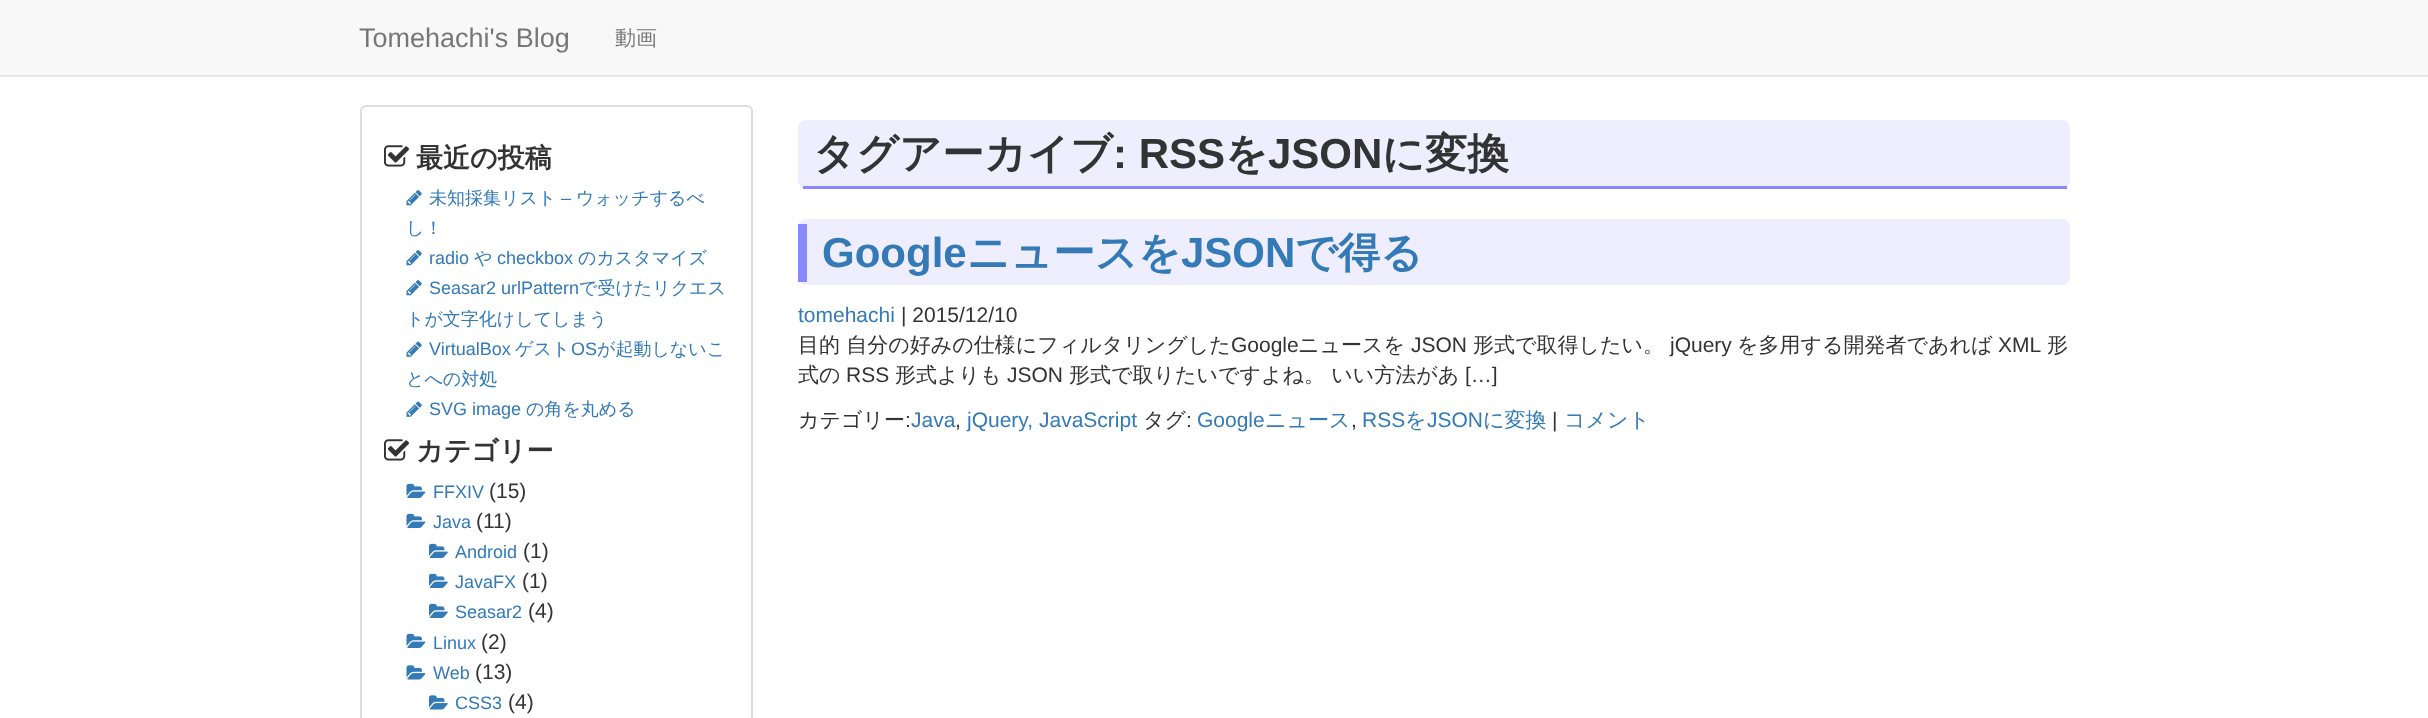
<svg xmlns="http://www.w3.org/2000/svg" width="2428" height="718">
<rect width="100%" height="100%" fill="#fff"/>
<rect width="2428" height="75" fill="#f8f8f8"/>
<rect y="75" width="2428" height="2" fill="#e7e7e7"/>
<text x="359" y="47" style="font-family:Liberation Sans;font-size:27px;fill:#777">Tomehachi's Blog</text>
<text x="615" y="45" style="font-family:WenQuanYi Zen Hei;font-size:21px;font-weight:500;fill:#777">動画</text>
<rect x="361" y="106" width="391" height="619" rx="5" fill="none" stroke="#ddd" stroke-width="2"/>
<image x="384" y="145" width="25" height="22" href="media/1.png"/>
<text x="416" y="167" style="font-family:WenQuanYi Zen Hei;font-size:27px;font-weight:bold;fill:#333">最近の投稿</text>
<image x="406" y="190" width="16" height="16" href="media/2.png"/>
<text x="429" y="204" style="font-family:WenQuanYi Zen Hei;font-size:18px;font-weight:500;fill:#337ab7">未知採集リスト</text>
<text x="561" y="204" style="font-family:Liberation Sans;font-size:18px;fill:#337ab7">–</text>
<text x="576" y="204" style="font-family:WenQuanYi Zen Hei;font-size:18px;font-weight:500;fill:#337ab7">ウォッチするべ</text>
<text x="406" y="234" style="font-family:WenQuanYi Zen Hei;font-size:18px;font-weight:500;fill:#337ab7">し！</text>
<image x="406" y="250" width="16" height="16" href="media/2.png"/>
<text x="429" y="264" style="font-family:Liberation Sans;font-size:18px;fill:#337ab7">radio</text>
<text x="474" y="264" style="font-family:WenQuanYi Zen Hei;font-size:18px;font-weight:500;fill:#337ab7">や</text>
<text x="497" y="264" style="font-family:Liberation Sans;font-size:18px;fill:#337ab7">checkbox</text>
<text x="578" y="264" style="font-family:WenQuanYi Zen Hei;font-size:18px;font-weight:500;fill:#337ab7">のカスタマイズ</text>
<image x="406" y="280" width="16" height="16" href="media/2.png"/>
<text x="429" y="294" style="font-family:Liberation Sans;font-size:18px;fill:#337ab7">Seasar2 urlPattern</text>
<text x="579" y="294" style="font-family:WenQuanYi Zen Hei;font-size:18px;font-weight:500;fill:#337ab7">で受けたリクエス</text>
<text x="406" y="325" style="font-family:WenQuanYi Zen Hei;font-size:18px;font-weight:500;fill:#337ab7">トが文字化けしてしまう</text>
<image x="406" y="341" width="16" height="16" href="media/3.png"/>
<text x="429" y="355" style="font-family:Liberation Sans;font-size:18px;fill:#337ab7">VirtualBox</text>
<text x="515" y="355" style="font-family:WenQuanYi Zen Hei;font-size:18px;font-weight:500;fill:#337ab7">ゲスト</text>
<text x="571" y="355" style="font-family:Liberation Sans;font-size:18px;fill:#337ab7">OS</text>
<text x="597" y="355" style="font-family:WenQuanYi Zen Hei;font-size:18px;font-weight:500;fill:#337ab7">が起動しないこ</text>
<text x="406" y="385" style="font-family:WenQuanYi Zen Hei;font-size:18px;font-weight:500;fill:#337ab7">とへの対処</text>
<image x="406" y="401" width="16" height="16" href="media/3.png"/>
<text x="429" y="415" style="font-family:Liberation Sans;font-size:18px;fill:#337ab7">SVG image</text>
<text x="526" y="415" style="font-family:WenQuanYi Zen Hei;font-size:18px;font-weight:500;fill:#337ab7">の角を丸める</text>
<image x="384" y="439" width="25" height="22" href="media/1.png"/>
<text x="416" y="460" style="font-family:WenQuanYi Zen Hei;font-size:27px;font-weight:bold;fill:#333">カテゴリー</text>
<image x="406" y="483" width="20" height="15" href="media/4.png"/>
<text x="433" y="498" style="font-family:Liberation Sans;font-size:18px;fill:#337ab7">FFXIV</text>
<text x="489" y="498" style="font-family:Liberation Sans;font-size:21px;fill:#333">(15)</text>
<image x="406" y="513" width="20" height="15" href="media/4.png"/>
<text x="433" y="528" style="font-family:Liberation Sans;font-size:18px;fill:#337ab7">Java</text>
<text x="476" y="528" style="font-family:Liberation Sans;font-size:21px;fill:#333">(11)</text>
<image x="429" y="543" width="19" height="15" href="media/5.png"/>
<text x="455" y="558" style="font-family:Liberation Sans;font-size:18px;fill:#337ab7">Android</text>
<text x="523" y="558" style="font-family:Liberation Sans;font-size:21px;fill:#333">(1)</text>
<image x="429" y="573" width="19" height="15" href="media/5.png"/>
<text x="455" y="588" style="font-family:Liberation Sans;font-size:18px;fill:#337ab7">JavaFX</text>
<text x="522" y="588" style="font-family:Liberation Sans;font-size:21px;fill:#333">(1)</text>
<image x="429" y="603" width="19" height="15" href="media/5.png"/>
<text x="455" y="618" style="font-family:Liberation Sans;font-size:18px;fill:#337ab7">Seasar2</text>
<text x="528" y="618" style="font-family:Liberation Sans;font-size:21px;fill:#333">(4)</text>
<image x="406" y="633" width="20" height="15" href="media/4.png"/>
<text x="433" y="649" style="font-family:Liberation Sans;font-size:18px;fill:#337ab7">Linux</text>
<text x="481" y="649" style="font-family:Liberation Sans;font-size:21px;fill:#333">(2)</text>
<image x="406" y="665" width="20" height="15" href="media/6.png"/>
<text x="433" y="679" style="font-family:Liberation Sans;font-size:18px;fill:#337ab7">Web</text>
<text x="475" y="679" style="font-family:Liberation Sans;font-size:21px;fill:#333">(13)</text>
<image x="429" y="695" width="19" height="15" href="media/7.png"/>
<text x="455" y="709" style="font-family:Liberation Sans;font-size:18px;fill:#337ab7">CSS3</text>
<text x="508" y="709" style="font-family:Liberation Sans;font-size:21px;fill:#333">(4)</text>
<rect x="798" y="120" width="1272" height="69" rx="8" fill="#eef"/>
<rect x="803" y="186" width="1264" height="3" fill="#88f"/>
<text x="813" y="168" style="font-family:WenQuanYi Zen Hei;font-size:42px;font-weight:bold;fill:#333">タグアーカイブ</text>
<text x="1113" y="168" style="font-family:Liberation Sans;font-size:42px;font-weight:bold;fill:#333">: RSS</text>
<text x="1225" y="168" style="font-family:WenQuanYi Zen Hei;font-size:42px;font-weight:bold;fill:#333">を</text>
<text x="1268" y="168" style="font-family:Liberation Sans;font-size:42px;font-weight:bold;fill:#333">JSON</text>
<text x="1382" y="168" style="font-family:WenQuanYi Zen Hei;font-size:42px;font-weight:bold;fill:#333">に変換</text>
<rect x="798" y="219" width="1272" height="66" rx="8" fill="#eef"/>
<rect x="798" y="224" width="9" height="58" fill="#88f"/>
<text x="822" y="267" style="font-family:Liberation Sans;font-size:42px;font-weight:bold;fill:#337ab7">Google</text>
<text x="967" y="267" style="font-family:WenQuanYi Zen Hei;font-size:42px;font-weight:bold;fill:#337ab7">ニュースを</text>
<text x="1181" y="267" style="font-family:Liberation Sans;font-size:42px;font-weight:bold;fill:#337ab7">JSON</text>
<text x="1295" y="267" style="font-family:WenQuanYi Zen Hei;font-size:42px;font-weight:bold;fill:#337ab7">で得る</text>
<text x="798" y="322" style="font-family:Liberation Sans;font-size:21px;fill:#337ab7">tomehachi</text>
<text x="901" y="322" style="font-family:Liberation Sans;font-size:21px;fill:#333">| 2015/12/10</text>
<text x="798" y="352" style="font-family:WenQuanYi Zen Hei;font-size:21px;font-weight:500;fill:#333">目的 自分の好みの仕様にフィルタリングした</text>
<text x="1231" y="352" style="font-family:Liberation Sans;font-size:21px;fill:#333">Google</text>
<text x="1298" y="352" style="font-family:WenQuanYi Zen Hei;font-size:21px;font-weight:500;fill:#333">ニュースを</text>
<text x="1411" y="352" style="font-family:Liberation Sans;font-size:21px;fill:#333">JSON</text>
<text x="1473" y="352" style="font-family:WenQuanYi Zen Hei;font-size:21px;font-weight:500;fill:#333">形式で取得したい。</text>
<text x="1670" y="352" style="font-family:Liberation Sans;font-size:21px;fill:#333">jQuery</text>
<text x="1737" y="352" style="font-family:WenQuanYi Zen Hei;font-size:21px;font-weight:500;fill:#333">を多用する開発者であれば</text>
<text x="1998" y="352" style="font-family:Liberation Sans;font-size:21px;fill:#333">XML</text>
<text x="2047" y="352" style="font-family:WenQuanYi Zen Hei;font-size:21px;font-weight:500;fill:#333">形</text>
<text x="798" y="382" style="font-family:WenQuanYi Zen Hei;font-size:21px;font-weight:500;fill:#333">式の</text>
<text x="846" y="382" style="font-family:Liberation Sans;font-size:21px;fill:#333">RSS</text>
<text x="895" y="382" style="font-family:WenQuanYi Zen Hei;font-size:21px;font-weight:500;fill:#333">形式よりも</text>
<text x="1007" y="382" style="font-family:Liberation Sans;font-size:21px;fill:#333">JSON</text>
<text x="1069" y="382" style="font-family:WenQuanYi Zen Hei;font-size:21px;font-weight:500;fill:#333">形式で取りたいですよね。 いい方法があ</text>
<text x="1465" y="382" style="font-family:Liberation Sans;font-size:21px;fill:#333">[…]</text>
<text x="798" y="427" style="font-family:WenQuanYi Zen Hei;font-size:21px;font-weight:500;fill:#333">カテゴリー</text>
<text x="905" y="427" style="font-family:Liberation Sans;font-size:21px;fill:#333">:</text>
<text x="911" y="427" style="font-family:Liberation Sans;font-size:21px;fill:#337ab7">Java</text>
<text x="955" y="427" style="font-family:Liberation Sans;font-size:21px;fill:#333">,</text>
<text x="967" y="427" style="font-family:Liberation Sans;font-size:21px;fill:#337ab7">jQuery, JavaScript</text>
<text x="1143" y="427" style="font-family:WenQuanYi Zen Hei;font-size:21px;font-weight:500;fill:#333">タグ</text>
<text x="1186" y="427" style="font-family:Liberation Sans;font-size:21px;fill:#333">:</text>
<text x="1197" y="427" style="font-family:Liberation Sans;font-size:21px;fill:#337ab7">Google</text>
<text x="1265" y="427" style="font-family:WenQuanYi Zen Hei;font-size:21px;font-weight:500;fill:#337ab7">ニュース</text>
<text x="1351" y="427" style="font-family:Liberation Sans;font-size:21px;fill:#333">,</text>
<text x="1362" y="427" style="font-family:Liberation Sans;font-size:21px;fill:#337ab7">RSS</text>
<text x="1405" y="427" style="font-family:WenQuanYi Zen Hei;font-size:21px;font-weight:500;fill:#337ab7">を</text>
<text x="1427" y="427" style="font-family:Liberation Sans;font-size:21px;fill:#337ab7">JSON</text>
<text x="1483" y="427" style="font-family:WenQuanYi Zen Hei;font-size:21px;font-weight:500;fill:#337ab7">に変換</text>
<text x="1552" y="427" style="font-family:Liberation Sans;font-size:21px;fill:#333">|</text>
<text x="1564" y="427" style="font-family:WenQuanYi Zen Hei;font-size:21px;font-weight:500;fill:#337ab7">コメント</text>
</svg>
